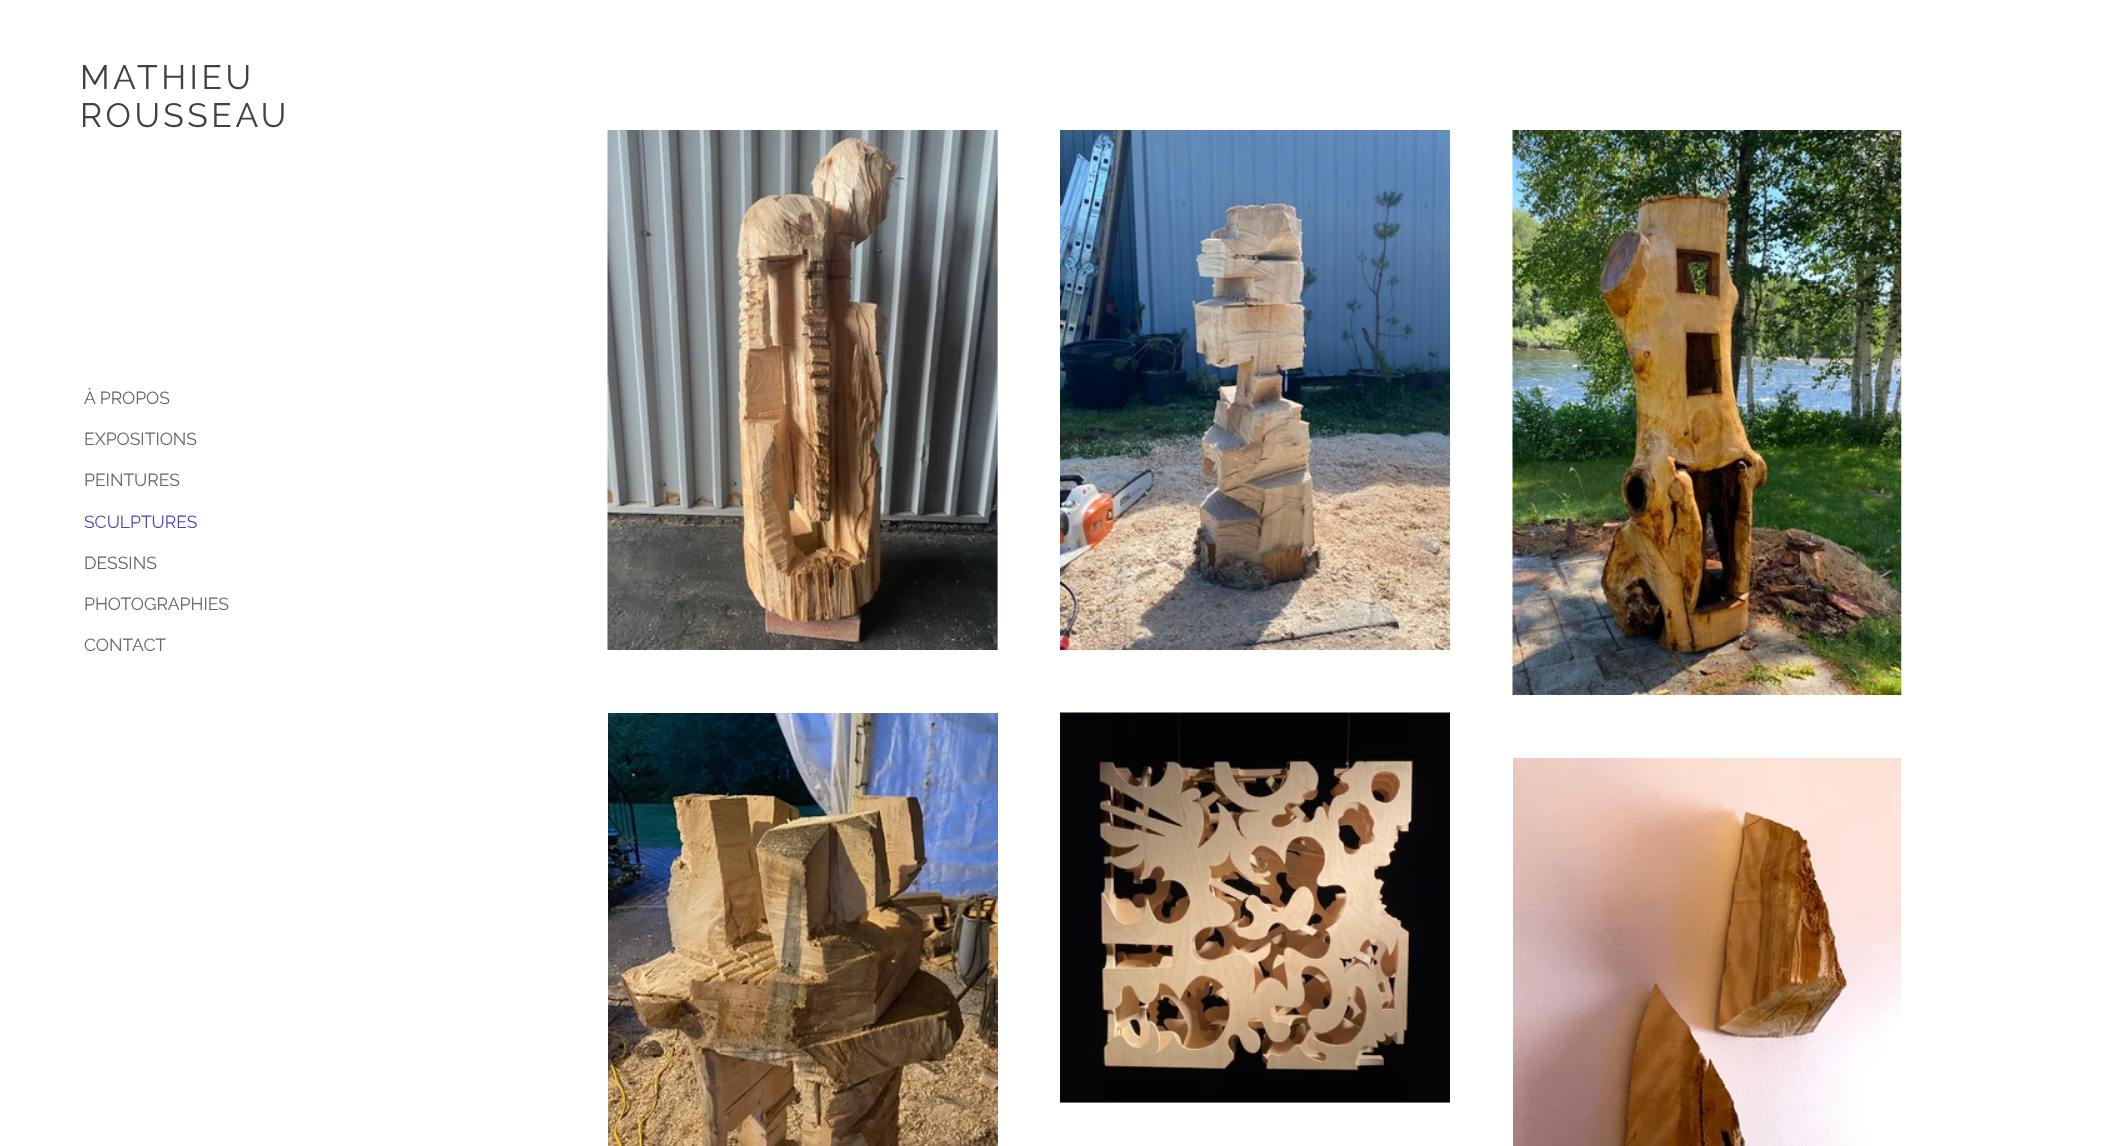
<svg xmlns="http://www.w3.org/2000/svg" width="2108" height="1146">
<rect width="100%" height="100%" fill="#fff"/>
<text x="80" y="89" style="font-family:Raleway;font-size:33.75px;letter-spacing:3.5px;fill:#414141">MATHIEU</text>
<text x="80" y="127" style="font-family:Raleway;font-size:33.75px;letter-spacing:3.5px;fill:#414141">ROUSSEAU</text>
<text x="84" y="404" style="font-family:Raleway;font-size:17.5px;fill:#636363">À PROPOS</text>
<text x="84" y="445" style="font-family:Raleway;font-size:17.5px;fill:#636363">EXPOSITIONS</text>
<text x="84" y="486" style="font-family:Raleway;font-size:17.5px;fill:#636363">PEINTURES</text>
<text x="84" y="528" style="font-family:Raleway;font-size:17.5px;fill:#4743c5">SCULPTURES</text>
<text x="84" y="569" style="font-family:Raleway;font-size:17.5px;fill:#636363">DESSINS</text>
<text x="84" y="610" style="font-family:Raleway;font-size:17.5px;fill:#636363">PHOTOGRAPHIES</text>
<text x="84" y="651" style="font-family:Raleway;font-size:17.5px;fill:#636363">CONTACT</text>
<rect x="997" y="130" width="1" height="520" fill="#d6d6d4"/>
<image x="607" y="130" width="391" height="520" href="media/1.png"/>
<image x="1060" y="130" width="390" height="520" href="media/2.png"/>
<image x="1512" y="130" width="390" height="565" href="media/3.png"/>
<image x="608" y="713" width="390" height="433" href="media/4.png"/>
<rect x="1060" y="1102" width="390" height="1" fill="#d6d6d4"/>
<image x="1060" y="712" width="390" height="391" href="media/5.png"/>
<image x="1513" y="758" width="388" height="388" href="media/6.png"/>
</svg>
